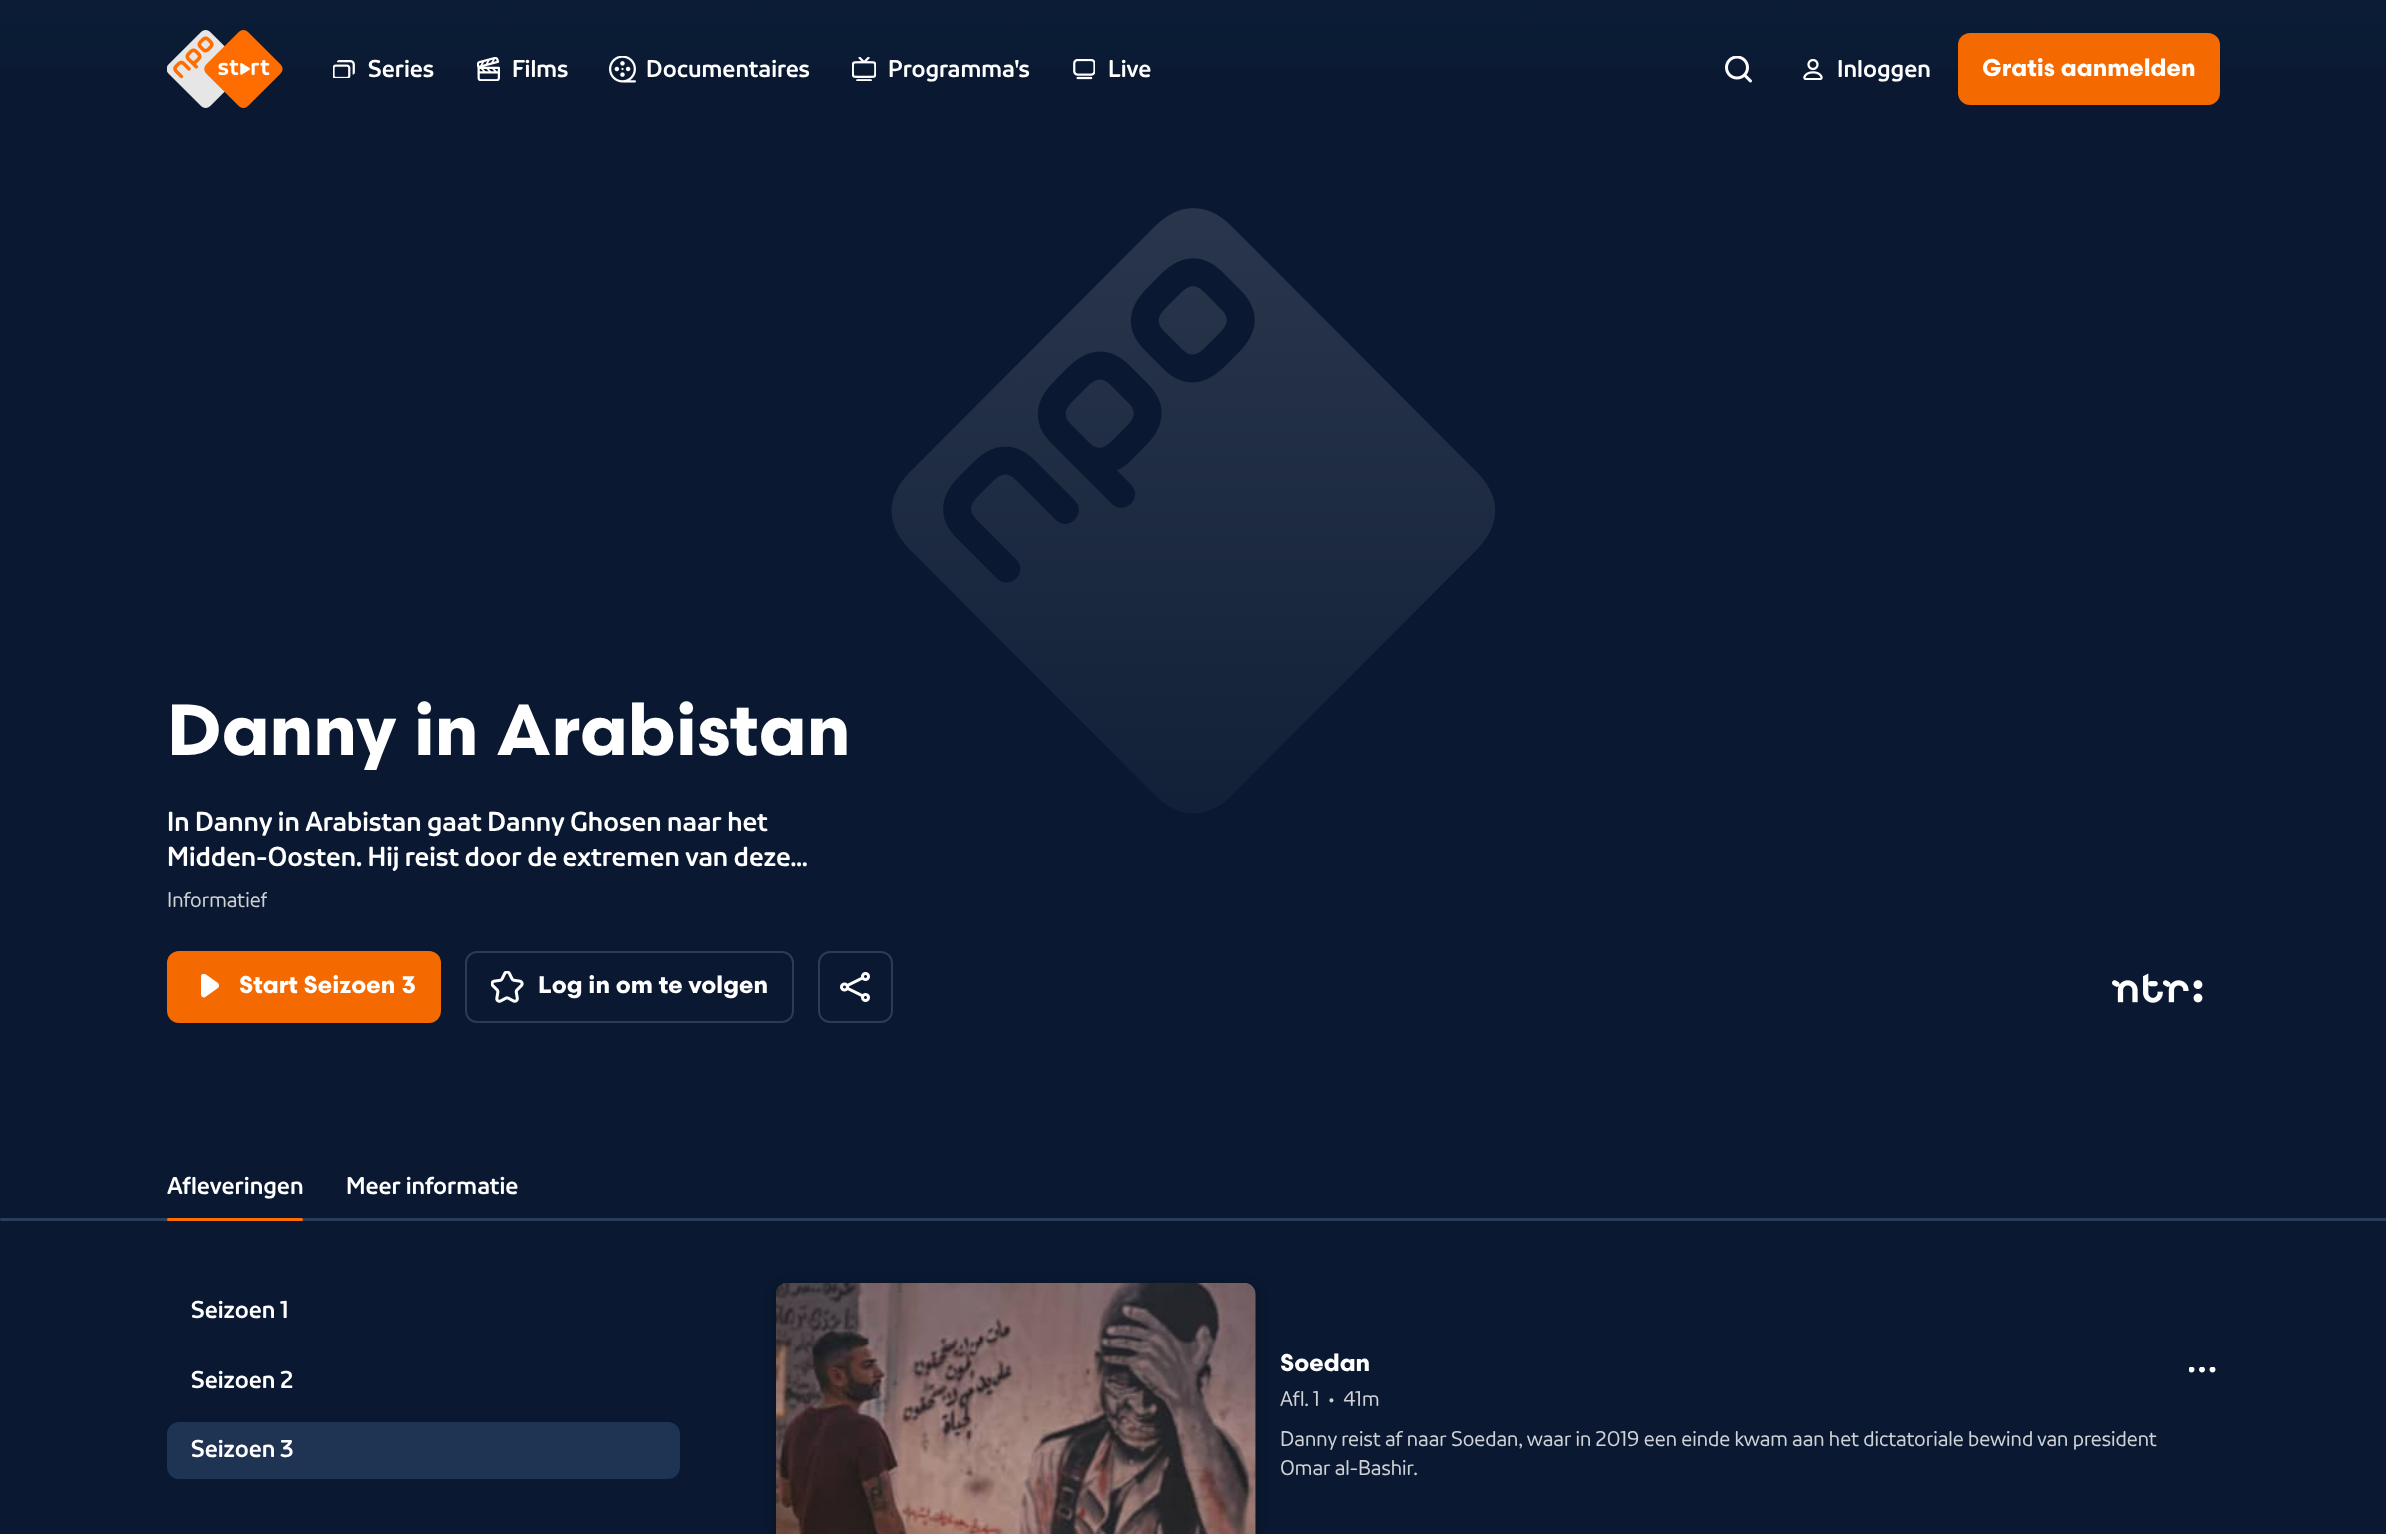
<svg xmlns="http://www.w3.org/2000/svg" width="2386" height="1534">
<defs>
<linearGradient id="g1" gradientUnits="userSpaceOnUse" x1="1193" y1="138" x2="1193" y2="0"><stop offset="0" stop-color="#0a1931"/><stop offset="1" stop-color="#0b1c36"/></linearGradient>
<linearGradient id="g2" gradientUnits="userSpaceOnUse" x1="1193" y1="0" x2="1193" y2="1023"><stop offset="0" stop-color="#0a1931" stop-opacity="0"/><stop offset="1" stop-color="#0a1931"/></linearGradient>
<clipPath id="clip1"><rect x="167" y="888" width="100" height="27"/></clipPath>
</defs>
<rect width="100%" height="100%" fill="#0a1931"/>
<rect width="2386" height="69" fill="url(#g1)"/>
<image x="167" y="30" width="116" height="78" href="media/1.png"/>
<image x="333" y="60" width="22" height="18" href="media/2.png"/>
<text x="368" y="77" style="font-family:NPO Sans;font-size:24px;font-weight:bold;fill:#fff">Series</text>
<image x="477" y="57" width="23" height="24" href="media/3.png"/>
<text x="512" y="77" style="font-family:NPO Sans;font-size:24px;font-weight:bold;fill:#fff">Films</text>
<image x="609" y="56" width="27" height="27" href="media/4.png"/>
<text x="646" y="77" style="font-family:NPO Sans;font-size:24px;font-weight:bold;fill:#fff">Documentaires</text>
<image x="852" y="57" width="24" height="24" href="media/5.png"/>
<text x="888" y="77" style="font-family:NPO Sans;font-size:24px;font-weight:bold;fill:#fff">Programma's</text>
<image x="1073" y="59" width="22" height="21" href="media/6.png"/>
<text x="1108" y="77" style="font-family:NPO Sans;font-size:24px;font-weight:bold;fill:#fff">Live</text>
<image x="1725" y="56" width="27" height="27" href="media/7.png"/>
<image x="1803" y="59" width="20" height="21" href="media/8.png"/>
<text x="1837" y="77" style="font-family:NPO Sans;font-size:24px;font-weight:bold;fill:#fff">Inloggen</text>
<rect x="1958" y="33" width="262" height="72" rx="12" fill="#f56a00"/>
<text x="1982" y="76" style="font-family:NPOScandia;font-size:24px;font-weight:bold;fill:#fff">Gratis aanmelden</text>
<image x="891" y="208" width="605" height="606" href="media/9.png"/>
<rect x="891" y="208" width="605" height="606" fill="url(#g2)"/>
<text x="167" y="755" style="font-family:NPOScandia;font-size:72px;font-weight:bold;fill:#fff">Danny in Arabistan</text>
<text x="167" y="831" style="font-family:NPO Sans;font-size:27px;font-weight:bold;fill:#fff">In Danny in Arabistan gaat Danny Ghosen naar het</text>
<text x="167" y="866" style="font-family:NPO Sans;font-size:27px;font-weight:bold;fill:#fff">Midden-Oosten. Hij reist door de extremen van deze…</text>
<g clip-path="url(#clip1)">
<text x="167" y="907" style="font-family:NPO Sans;font-size:21px;fill:#ced1d6">Informatief</text>
</g>
<rect x="167" y="951" width="274" height="72" rx="12" fill="#f56a00"/>
<image x="201" y="974" width="18" height="24" href="media/10.png"/>
<text x="239" y="993" style="font-family:NPOScandia;font-size:24px;font-weight:bold;fill:#fff">Start Seizoen 3</text>
<rect x="466" y="952" width="327" height="70" rx="11" fill="none" stroke="#2f3b50" stroke-width="2"/>
<image x="491" y="971" width="33" height="32" href="media/11.png"/>
<text x="538" y="993" style="font-family:NPOScandia;font-size:24px;font-weight:bold;fill:#fff">Log in om te volgen</text>
<rect x="819" y="952" width="73" height="70" rx="11" fill="none" stroke="#2f3b50" stroke-width="2"/>
<image x="840" y="972" width="30" height="30" href="media/12.png"/>
<image x="2112" y="973" width="91" height="30" href="media/13.png"/>
<text x="167" y="1194" style="font-family:NPO Sans;font-size:24px;font-weight:bold;fill:#fff">Afleveringen</text>
<rect y="1218" width="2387" height="3" rx="1.5" fill="#293d5d"/>
<rect x="167" y="1218" width="136" height="3" rx="1.5" fill="#ff6d00"/>
<text x="346" y="1194" style="font-family:NPO Sans;font-size:24px;font-weight:bold;fill:#fff">Meer informatie</text>
<text x="191" y="1318" style="font-family:NPO Sans;font-size:24px;font-weight:bold;fill:#fff">Seizoen 1</text>
<text x="191" y="1388" style="font-family:NPO Sans;font-size:24px;font-weight:bold;fill:#fff">Seizoen 2</text>
<rect x="167" y="1422" width="513" height="57" rx="12" fill="#1f3353"/>
<text x="191" y="1457" style="font-family:NPO Sans;font-size:24px;font-weight:bold;fill:#fff">Seizoen 3</text>
<rect x="776" y="1286" width="480" height="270" rx="12" fill="#00000059" filter="blur(6px)"/>
<rect x="776" y="1283" width="480" height="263" rx="12" fill="#1f3353"/>
<image x="776" y="1283" width="480" height="251" href="media/14.png"/>
<text x="1280" y="1371" style="font-family:NPOScandia;font-size:24px;font-weight:bold;fill:#fff">Soedan</text>
<text x="1280" y="1406" style="font-family:NPO Sans;font-size:21px;fill:#ced1d6">Afl. 1</text>
<text x="1329" y="1406" style="font-family:NPO Sans;font-size:21px;fill:#ced1d6">•</text>
<text x="1343" y="1406" style="font-family:NPO Sans;font-size:21px;fill:#ced1d6">41m</text>
<text x="1280" y="1446" style="font-family:NPO Sans;font-size:21px;fill:#ced1d6">Danny reist af naar Soedan, waar in 2019 een einde kwam aan het dictatoriale bewind van president</text>
<text x="1280" y="1475" style="font-family:NPO Sans;font-size:21px;fill:#ced1d6">Omar al-Bashir.</text>
<image x="2189" y="1367" width="27" height="6" href="media/15.png"/>
</svg>
